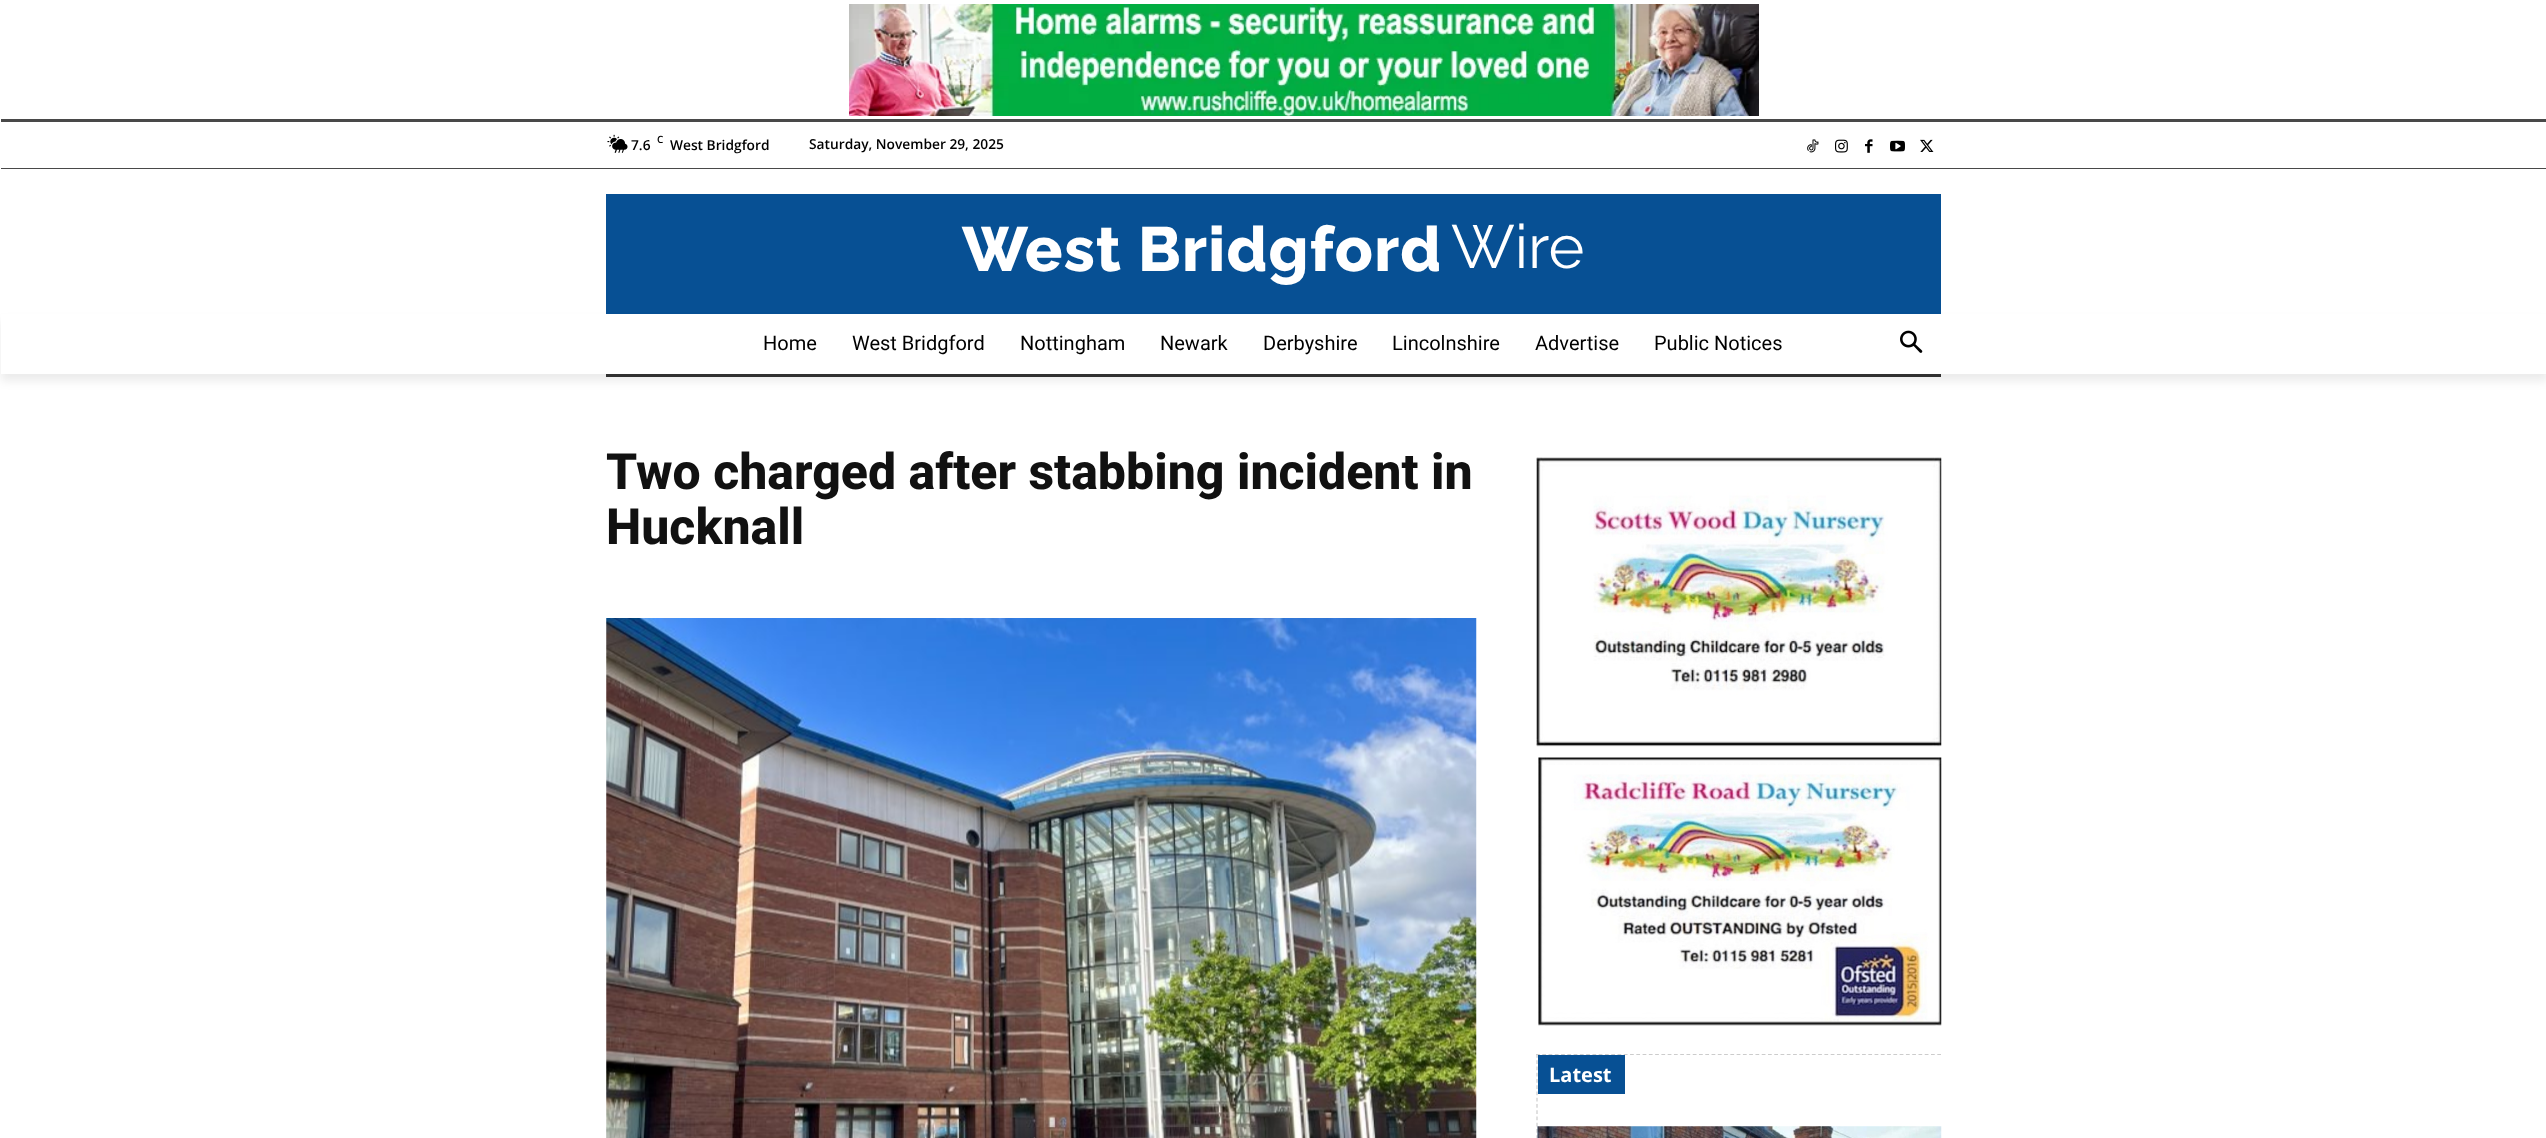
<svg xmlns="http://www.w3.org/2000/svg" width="2546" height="1138">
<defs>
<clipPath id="clip1"><path d="M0 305h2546v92h-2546zm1 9h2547v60h-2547z" clip-rule="evenodd"/></clipPath>
</defs>
<rect width="100%" height="100%" fill="#fff"/>
<image x="849" y="4" width="910" height="112" href="media/1.png"/>
<rect x="1" y="119" width="2545" height="3" fill="#494949"/>
<rect x="1" y="168" width="2545" height="1" fill="#494949"/>
<image x="607" y="134" width="21" height="19" href="media/2.png"/>
<text x="631" y="150" style="font-family:Open Sans;font-size:13.75px;font-weight:600;fill:#000">7.6</text>
<text x="657" y="143" style="font-family:Open Sans;font-size:10px;font-weight:600;fill:#000">C</text>
<text x="670" y="150" style="font-family:Open Sans;font-size:13.75px;font-weight:600;fill:#000">West Bridgford</text>
<text x="809" y="149" style="font-family:Open Sans;font-size:13.75px;font-weight:600;fill:#000">Saturday, November 29, 2025</text>
<image x="1807" y="139" width="12" height="14" href="media/3.png"/>
<image x="1835" y="139" width="13" height="14" href="media/4.png"/>
<image x="1865" y="139" width="8" height="14" href="media/5.png"/>
<image x="1890" y="140" width="15" height="12" href="media/6.png"/>
<image x="1920" y="139" width="14" height="13" href="media/7.png"/>
<rect x="606" y="194" width="1335" height="120" fill="#075094"/>
<text x="962" y="271" style="font-family:Raleway;font-size:62.5px;font-weight:800;letter-spacing:1.25px;fill:#fff">West Bridgford</text>
<text x="1451" y="268" style="font-family:Raleway;font-size:61px;fill:#fff">Wire</text>
<rect x="606" y="374" width="1335" height="3" fill="#353535"/>
<g clip-path="url(#clip1)">
<rect x="1" y="321" width="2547" height="60" fill="#00000014" filter="blur(5px)"/>
</g>
<text x="763" y="350" style="font-family:Roboto;font-size:20px;fill:#000">Home</text>
<text x="852" y="350" style="font-family:Roboto;font-size:20px;fill:#000">West Bridgford</text>
<text x="1020" y="350" style="font-family:Roboto;font-size:20px;fill:#000">Nottingham</text>
<text x="1160" y="350" style="font-family:Roboto;font-size:20px;fill:#000">Newark</text>
<text x="1263" y="350" style="font-family:Roboto;font-size:20px;fill:#000">Derbyshire</text>
<text x="1392" y="350" style="font-family:Roboto;font-size:20px;fill:#000">Lincolnshire</text>
<text x="1535" y="350" style="font-family:Roboto;font-size:20px;fill:#000">Advertise</text>
<text x="1654" y="350" style="font-family:Roboto;font-size:20px;fill:#000">Public Notices</text>
<image x="1900" y="330" width="23" height="23" href="media/8.png"/>
<text x="606" y="489" style="font-family:Roboto;font-size:50px;font-weight:800;fill:#111">Two charged after stabbing incident in</text>
<text x="606" y="544" style="font-family:Roboto;font-size:50px;font-weight:800;fill:#111">Hucknall</text>
<image x="606" y="618" width="871" height="520" href="media/9.png"/>
<image x="1536" y="457" width="406" height="290" href="media/10.png"/>
<image x="1538" y="757" width="404" height="269" href="media/11.png"/>
<path d="M1536 1054.5h405" fill="none" stroke="#ccc" stroke-width="1.2" stroke-dasharray="3.75 2.52"/>
<path d="M1537 1054v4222" fill="none" stroke="#ccc" stroke-width="1.2" stroke-dasharray="3.75 2.5"/>
<rect x="1538" y="1055" width="87" height="39" fill="#075094"/>
<text x="1549" y="1082" style="font-family:Open Sans;font-size:20px;font-weight:bold;fill:#fff">Latest</text>
<image x="1537" y="1126" width="405" height="12" href="media/12.png"/>
</svg>
